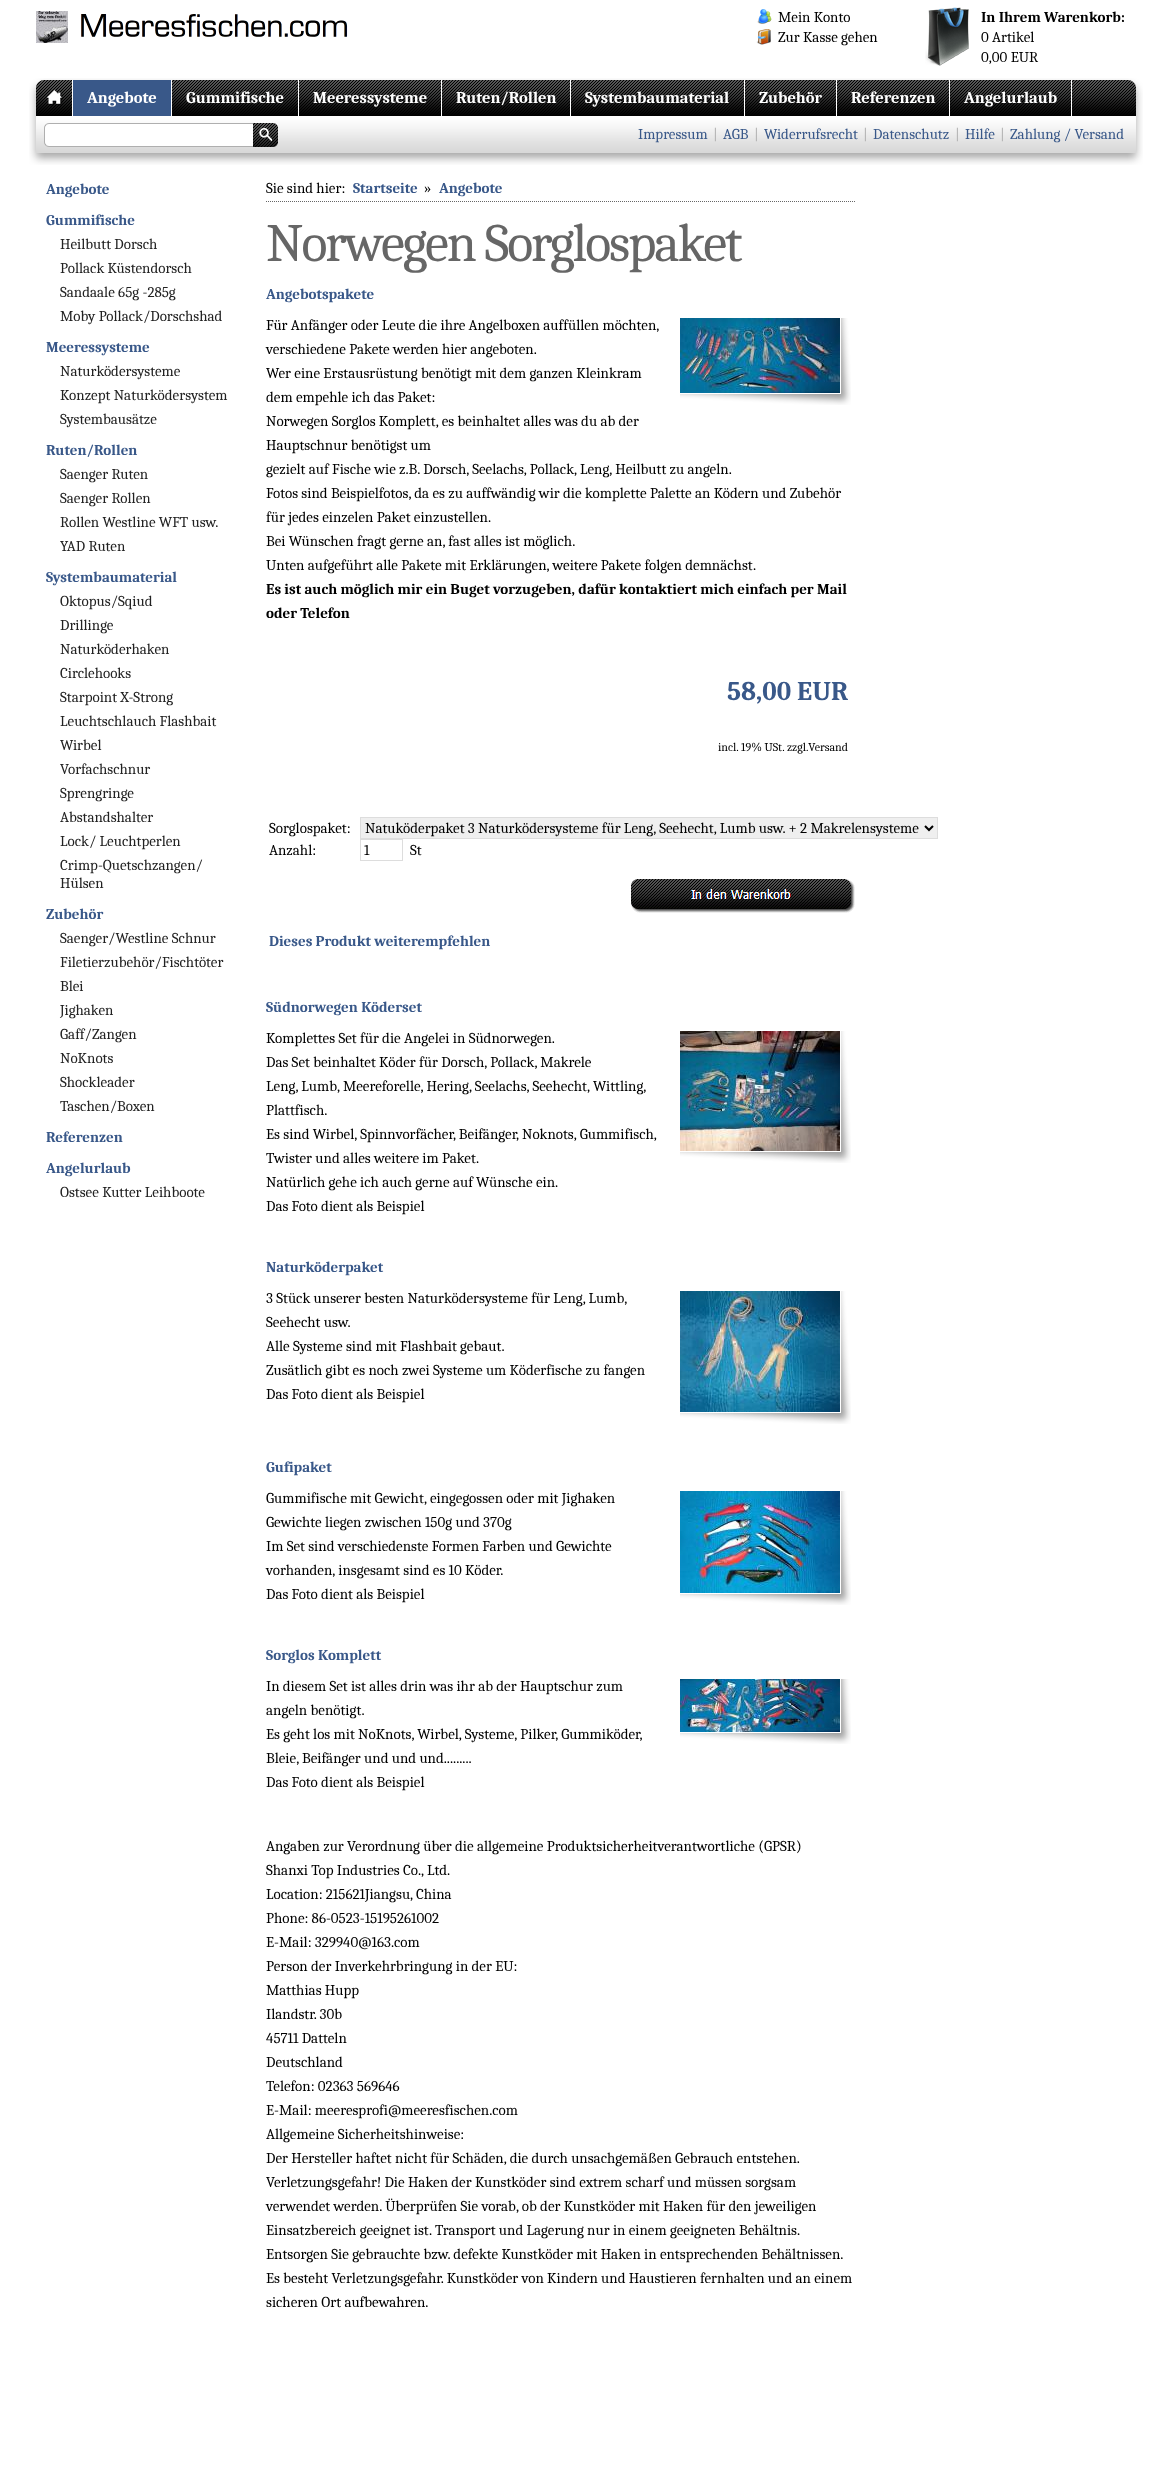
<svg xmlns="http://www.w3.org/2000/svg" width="1172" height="2479">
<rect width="100%" height="100%" fill="#fff"/>
<image x="36" y="11" width="32" height="32" href="media/1.png"/>
<image x="81" y="14" width="267" height="23" href="media/2.png"/>
<image x="757" y="9" width="15" height="15" href="media/3.png"/>
<text x="778" y="22" style="font-family:Caladea;font-size:15px;fill:#000">Mein Konto</text>
<image x="756" y="29" width="15" height="16" href="media/4.png"/>
<text x="778" y="42" style="font-family:Caladea;font-size:15px;fill:#000">Zur Kasse gehen</text>
<image x="925" y="7" width="44" height="59" href="media/5.png"/>
<text x="981" y="22" style="font-family:Caladea;font-size:15px;font-weight:bold;fill:#000">In Ihrem Warenkorb:</text>
<text x="981" y="42" style="font-family:Caladea;font-size:15px;fill:#000">0 Artikel</text>
<text x="981" y="62" style="font-family:Caladea;font-size:15px;fill:#000">0,00 EUR</text>
<image x="29" y="78" width="1114" height="38" href="media/6.png"/>
<image x="47" y="80" width="25" height="26" href="media/7.png"/>
<rect x="72" y="80" width="1" height="36" fill="#fff"/>
<rect x="73" y="80" width="98" height="36" fill="#395889"/>
<rect x="171" y="80" width="1" height="36" fill="#fff"/>
<text x="87" y="103" style="font-family:Caladea;font-size:16.5px;font-weight:bold;fill:#fff">Angebote</text>
<rect x="298" y="80" width="1" height="36" fill="#fff"/>
<text x="186" y="103" style="font-family:Caladea;font-size:16.5px;font-weight:bold;fill:#fff">Gummifische</text>
<rect x="441" y="80" width="1" height="36" fill="#fff"/>
<text x="313" y="103" style="font-family:Caladea;font-size:16.5px;font-weight:bold;fill:#fff">Meeressysteme</text>
<rect x="570" y="80" width="1" height="36" fill="#fff"/>
<text x="456" y="103" style="font-family:Caladea;font-size:16.5px;font-weight:bold;fill:#fff">Ruten/Rollen</text>
<rect x="744" y="80" width="1" height="36" fill="#fff"/>
<text x="585" y="103" style="font-family:Caladea;font-size:16.5px;font-weight:bold;fill:#fff">Systembaumaterial</text>
<rect x="836" y="80" width="1" height="36" fill="#fff"/>
<text x="759" y="103" style="font-family:Caladea;font-size:16.5px;font-weight:bold;fill:#fff">Zubehör</text>
<rect x="949" y="80" width="1" height="36" fill="#fff"/>
<text x="851" y="103" style="font-family:Caladea;font-size:16.5px;font-weight:bold;fill:#fff">Referenzen</text>
<rect x="1071" y="80" width="1" height="36" fill="#fff"/>
<text x="964" y="103" style="font-family:Caladea;font-size:16.5px;font-weight:bold;fill:#fff">Angelurlaub</text>
<image x="29" y="116" width="1114" height="49" href="media/8.png"/>
<image x="44" y="123" width="209" height="24" href="media/9.png"/>
<image x="253" y="123" width="25" height="24" href="media/10.png"/>
<text x="638" y="139" style="font-family:Caladea;font-size:15px;fill:#395889">Impressum</text>
<text x="713" y="139" style="font-family:Caladea;font-size:15px;fill:#afafaf">|</text>
<text x="723" y="139" style="font-family:Caladea;font-size:15px;fill:#395889">AGB</text>
<text x="754" y="139" style="font-family:Caladea;font-size:15px;fill:#afafaf">|</text>
<text x="764" y="139" style="font-family:Caladea;font-size:15px;fill:#395889">Widerrufsrecht</text>
<text x="863" y="139" style="font-family:Caladea;font-size:15px;fill:#afafaf">|</text>
<text x="873" y="139" style="font-family:Caladea;font-size:15px;fill:#395889">Datenschutz</text>
<text x="955" y="139" style="font-family:Caladea;font-size:15px;fill:#afafaf">|</text>
<text x="965" y="139" style="font-family:Caladea;font-size:15px;fill:#395889">Hilfe</text>
<text x="1000" y="139" style="font-family:Caladea;font-size:15px;fill:#afafaf">|</text>
<text x="1010" y="139" style="font-family:Caladea;font-size:15px;fill:#395889">Zahlung / Versand</text>
<text x="46" y="194" style="font-family:Caladea;font-size:15px;font-weight:bold;fill:#395889">Angebote</text>
<text x="46" y="225" style="font-family:Caladea;font-size:15px;font-weight:bold;fill:#395889">Gummifische</text>
<text x="60" y="249" style="font-family:Caladea;font-size:15px;fill:#222">Heilbutt Dorsch</text>
<text x="60" y="273" style="font-family:Caladea;font-size:15px;fill:#222">Pollack Küstendorsch</text>
<text x="60" y="297" style="font-family:Caladea;font-size:15px;fill:#222">Sandaale 65g -285g</text>
<text x="60" y="321" style="font-family:Caladea;font-size:15px;fill:#222">Moby Pollack/Dorschshad</text>
<text x="46" y="352" style="font-family:Caladea;font-size:15px;font-weight:bold;fill:#395889">Meeressysteme</text>
<text x="60" y="376" style="font-family:Caladea;font-size:15px;fill:#222">Naturködersysteme</text>
<text x="60" y="400" style="font-family:Caladea;font-size:15px;fill:#222">Konzept Naturködersystem</text>
<text x="60" y="424" style="font-family:Caladea;font-size:15px;fill:#222">Systembausätze</text>
<text x="46" y="455" style="font-family:Caladea;font-size:15px;font-weight:bold;fill:#395889">Ruten/Rollen</text>
<text x="60" y="479" style="font-family:Caladea;font-size:15px;fill:#222">Saenger Ruten</text>
<text x="60" y="503" style="font-family:Caladea;font-size:15px;fill:#222">Saenger Rollen</text>
<text x="60" y="527" style="font-family:Caladea;font-size:15px;fill:#222">Rollen Westline WFT usw.</text>
<text x="60" y="551" style="font-family:Caladea;font-size:15px;fill:#222">YAD Ruten</text>
<text x="46" y="582" style="font-family:Caladea;font-size:15px;font-weight:bold;fill:#395889">Systembaumaterial</text>
<text x="60" y="606" style="font-family:Caladea;font-size:15px;fill:#222">Oktopus/Sqiud</text>
<text x="60" y="630" style="font-family:Caladea;font-size:15px;fill:#222">Drillinge</text>
<text x="60" y="654" style="font-family:Caladea;font-size:15px;fill:#222">Naturköderhaken</text>
<text x="60" y="678" style="font-family:Caladea;font-size:15px;fill:#222">Circlehooks</text>
<text x="60" y="702" style="font-family:Caladea;font-size:15px;fill:#222">Starpoint X-Strong</text>
<text x="60" y="726" style="font-family:Caladea;font-size:15px;fill:#222">Leuchtschlauch Flashbait</text>
<text x="60" y="750" style="font-family:Caladea;font-size:15px;fill:#222">Wirbel</text>
<text x="60" y="774" style="font-family:Caladea;font-size:15px;fill:#222">Vorfachschnur</text>
<text x="60" y="798" style="font-family:Caladea;font-size:15px;fill:#222">Sprengringe</text>
<text x="60" y="822" style="font-family:Caladea;font-size:15px;fill:#222">Abstandshalter</text>
<text x="60" y="846" style="font-family:Caladea;font-size:15px;fill:#222">Lock/ Leuchtperlen</text>
<text x="60" y="870" style="font-family:Caladea;font-size:15px;fill:#222">Crimp-Quetschzangen/</text>
<text x="60" y="888" style="font-family:Caladea;font-size:15px;fill:#222">Hülsen</text>
<text x="46" y="919" style="font-family:Caladea;font-size:15px;font-weight:bold;fill:#395889">Zubehör</text>
<text x="60" y="943" style="font-family:Caladea;font-size:15px;fill:#222">Saenger/Westline Schnur</text>
<text x="60" y="967" style="font-family:Caladea;font-size:15px;fill:#222">Filetierzubehör/Fischtöter</text>
<text x="60" y="991" style="font-family:Caladea;font-size:15px;fill:#222">Blei</text>
<text x="60" y="1015" style="font-family:Caladea;font-size:15px;fill:#222">Jighaken</text>
<text x="60" y="1039" style="font-family:Caladea;font-size:15px;fill:#222">Gaff/Zangen</text>
<text x="60" y="1063" style="font-family:Caladea;font-size:15px;fill:#222">NoKnots</text>
<text x="60" y="1087" style="font-family:Caladea;font-size:15px;fill:#222">Shockleader</text>
<text x="60" y="1111" style="font-family:Caladea;font-size:15px;fill:#222">Taschen/Boxen</text>
<text x="46" y="1142" style="font-family:Caladea;font-size:15px;font-weight:bold;fill:#395889">Referenzen</text>
<text x="46" y="1173" style="font-family:Caladea;font-size:15px;font-weight:bold;fill:#395889">Angelurlaub</text>
<text x="60" y="1197" style="font-family:Caladea;font-size:15px;fill:#222">Ostsee Kutter Leihboote</text>
<image x="266" y="201" width="589" height="1" href="media/11.png"/>
<text x="266" y="193" style="font-family:Caladea;font-size:15px;fill:#000">Sie sind hier:</text>
<text x="353" y="193" style="font-family:Caladea;font-size:15px;font-weight:bold;fill:#395889">Startseite</text>
<text x="424" y="193" style="font-family:Caladea;font-size:15px;fill:#000">»</text>
<text x="439" y="193" style="font-family:Caladea;font-size:15px;font-weight:bold;fill:#395889">Angebote</text>
<text x="266" y="261" style="font-family:Caladea;font-size:54px;letter-spacing:-2px;fill:#666">Norwegen Sorglospaket</text>
<text x="266" y="299" style="font-family:Caladea;font-size:15px;font-weight:bold;fill:#395889">Angebotspakete</text>
<image x="680" y="318" width="171" height="87" href="media/12.png"/>
<text x="266" y="330" style="font-family:Caladea;font-size:15px;fill:#000">Für Anfänger oder Leute die ihre Angelboxen auffüllen möchten,</text>
<text x="266" y="354" style="font-family:Caladea;font-size:15px;fill:#000">verschiedene Pakete werden hier angeboten.</text>
<text x="266" y="378" style="font-family:Caladea;font-size:15px;fill:#000">Wer eine Erstausrüstung benötigt mit dem ganzen Kleinkram</text>
<text x="266" y="402" style="font-family:Caladea;font-size:15px;fill:#000">dem empehle ich das Paket:</text>
<text x="266" y="426" style="font-family:Caladea;font-size:15px;fill:#000">Norwegen Sorglos Komplett, es beinhaltet alles was du ab der</text>
<text x="266" y="450" style="font-family:Caladea;font-size:15px;fill:#000">Hauptschnur benötigst um</text>
<text x="266" y="474" style="font-family:Caladea;font-size:15px;fill:#000">gezielt auf Fische wie z.B. Dorsch, Seelachs, Pollack, Leng, Heilbutt zu angeln.</text>
<text x="266" y="498" style="font-family:Caladea;font-size:15px;fill:#000">Fotos sind Beispielfotos, da es zu auffwändig wir die komplette Palette an Ködern und Zubehör</text>
<text x="266" y="522" style="font-family:Caladea;font-size:15px;fill:#000">für jedes einzelen Paket einzustellen.</text>
<text x="266" y="546" style="font-family:Caladea;font-size:15px;fill:#000">Bei Wünschen fragt gerne an, fast alles ist möglich.</text>
<text x="266" y="570" style="font-family:Caladea;font-size:15px;fill:#000">Unten aufgeführt alle Pakete mit Erklärungen, weitere Pakete folgen demnächst.</text>
<text x="266" y="594" style="font-family:Caladea;font-size:15px;font-weight:bold;fill:#000">Es ist auch möglich mir ein Buget vorzugeben, dafür kontaktiert mich einfach per Mail</text>
<text x="266" y="618" style="font-family:Caladea;font-size:15px;font-weight:bold;fill:#000">oder Telefon</text>
<text x="727" y="700" style="font-family:Caladea;font-size:27px;font-weight:bold;fill:#395889">58,00 EUR</text>
<text x="718" y="751" style="font-family:Caladea;font-size:12px;fill:#000">incl. 19% USt. zzgl.Versand</text>
<text x="269" y="833" style="font-family:Caladea;font-size:15px;fill:#000">Sorglospaket:</text>
<rect x="360.5" y="817.5" width="577" height="21" fill="#efefef" stroke="#ddd"/>
<path d="M925 826l4 4l4-4" fill="none" stroke="#000" stroke-width="2"/>
<text x="365" y="833" style="font-family:Caladea;font-size:15px;fill:#000">Natuköderpaket 3 Naturködersysteme für Leng, Seehecht, Lumb usw. + 2 Makrelensysteme</text>
<text x="269" y="855" style="font-family:Caladea;font-size:15px;fill:#000">Anzahl:</text>
<rect x="360.5" y="839.5" width="42" height="21" fill="none" stroke="#ddd"/>
<text x="364" y="855" style="font-family:Caladea;font-size:15px;fill:#000">1</text>
<text x="410" y="855" style="font-family:Caladea;font-size:15px;fill:#000">St</text>
<image x="631" y="879" width="224" height="34" href="media/13.png"/>
<text x="269" y="946" style="font-family:Caladea;font-size:15px;font-weight:bold;fill:#395889">Dieses Produkt weiterempfehlen</text>
<text x="266" y="1012" style="font-family:Caladea;font-size:15px;font-weight:bold;fill:#395889">Südnorwegen Köderset</text>
<text x="266" y="1043" style="font-family:Caladea;font-size:15px;fill:#000">Komplettes Set für die Angelei in Südnorwegen.</text>
<text x="266" y="1067" style="font-family:Caladea;font-size:15px;fill:#000">Das Set beinhaltet Köder für Dorsch, Pollack, Makrele</text>
<text x="266" y="1091" style="font-family:Caladea;font-size:15px;fill:#000">Leng, Lumb, Meereforelle, Hering, Seelachs, Seehecht, Wittling,</text>
<text x="266" y="1115" style="font-family:Caladea;font-size:15px;fill:#000">Plattfisch.</text>
<text x="266" y="1139" style="font-family:Caladea;font-size:15px;fill:#000">Es sind Wirbel, Spinnvorfächer, Beifänger, Noknots, Gummifisch,</text>
<text x="266" y="1163" style="font-family:Caladea;font-size:15px;fill:#000">Twister und alles weitere im Paket.</text>
<text x="266" y="1187" style="font-family:Caladea;font-size:15px;fill:#000">Natürlich gehe ich auch gerne auf Wünsche ein.</text>
<text x="266" y="1211" style="font-family:Caladea;font-size:15px;fill:#000">Das Foto dient als Beispiel</text>
<image x="680" y="1031" width="171" height="132" href="media/14.png"/>
<text x="266" y="1272" style="font-family:Caladea;font-size:15px;font-weight:bold;fill:#395889">Naturköderpaket</text>
<text x="266" y="1303" style="font-family:Caladea;font-size:15px;fill:#000">3 Stück unserer besten Naturködersysteme für Leng, Lumb,</text>
<text x="266" y="1327" style="font-family:Caladea;font-size:15px;fill:#000">Seehecht usw.</text>
<text x="266" y="1351" style="font-family:Caladea;font-size:15px;fill:#000">Alle Systeme sind mit Flashbait gebaut.</text>
<text x="266" y="1375" style="font-family:Caladea;font-size:15px;fill:#000">Zusätlich gibt es noch zwei Systeme um Köderfische zu fangen</text>
<text x="266" y="1399" style="font-family:Caladea;font-size:15px;fill:#000">Das Foto dient als Beispiel</text>
<image x="680" y="1291" width="171" height="133" href="media/15.png"/>
<text x="266" y="1472" style="font-family:Caladea;font-size:15px;font-weight:bold;fill:#395889">Gufipaket</text>
<text x="266" y="1503" style="font-family:Caladea;font-size:15px;fill:#000">Gummifische mit Gewicht, eingegossen oder mit Jighaken</text>
<text x="266" y="1527" style="font-family:Caladea;font-size:15px;fill:#000">Gewichte liegen zwischen 150g und 370g</text>
<text x="266" y="1551" style="font-family:Caladea;font-size:15px;fill:#000">Im Set sind verschiedenste Formen Farben und Gewichte</text>
<text x="266" y="1575" style="font-family:Caladea;font-size:15px;fill:#000">vorhanden, insgesamt sind es 10 Köder.</text>
<text x="266" y="1599" style="font-family:Caladea;font-size:15px;fill:#000">Das Foto dient als Beispiel</text>
<image x="680" y="1491" width="171" height="114" href="media/16.png"/>
<text x="266" y="1660" style="font-family:Caladea;font-size:15px;font-weight:bold;fill:#395889">Sorglos Komplett</text>
<text x="266" y="1691" style="font-family:Caladea;font-size:15px;fill:#000">In diesem Set ist alles drin was ihr ab der Hauptschur zum</text>
<text x="266" y="1715" style="font-family:Caladea;font-size:15px;fill:#000">angeln benötigt.</text>
<text x="266" y="1739" style="font-family:Caladea;font-size:15px;fill:#000">Es geht los mit NoKnots, Wirbel, Systeme, Pilker, Gummiköder,</text>
<text x="266" y="1763" style="font-family:Caladea;font-size:15px;fill:#000">Bleie, Beifänger und und und.........</text>
<text x="266" y="1787" style="font-family:Caladea;font-size:15px;fill:#000">Das Foto dient als Beispiel</text>
<image x="680" y="1679" width="171" height="65" href="media/17.png"/>
<text x="266" y="1851" style="font-family:Caladea;font-size:15px;fill:#000">Angaben zur Verordnung über die allgemeine Produktsicherheitverantwortliche (GPSR)</text>
<text x="266" y="1875" style="font-family:Caladea;font-size:15px;fill:#000">Shanxi Top Industries Co., Ltd.</text>
<text x="266" y="1899" style="font-family:Caladea;font-size:15px;fill:#000">Location: 215621Jiangsu, China</text>
<text x="266" y="1923" style="font-family:Caladea;font-size:15px;fill:#000">Phone: 86-0523-15195261002</text>
<text x="266" y="1947" style="font-family:Caladea;font-size:15px;fill:#000">E-Mail: 329940@163.com</text>
<text x="266" y="1971" style="font-family:Caladea;font-size:15px;fill:#000">Person der Inverkehrbringung in der EU:</text>
<text x="266" y="1995" style="font-family:Caladea;font-size:15px;fill:#000">Matthias Hupp</text>
<text x="266" y="2019" style="font-family:Caladea;font-size:15px;fill:#000">Ilandstr. 30b</text>
<text x="266" y="2043" style="font-family:Caladea;font-size:15px;fill:#000">45711 Datteln</text>
<text x="266" y="2067" style="font-family:Caladea;font-size:15px;fill:#000">Deutschland</text>
<text x="266" y="2091" style="font-family:Caladea;font-size:15px;fill:#000">Telefon: 02363 569646</text>
<text x="266" y="2115" style="font-family:Caladea;font-size:15px;fill:#000">E-Mail: meeresprofi@meeresfischen.com</text>
<text x="266" y="2139" style="font-family:Caladea;font-size:15px;fill:#000">Allgemeine Sicherheitshinweise:</text>
<text x="266" y="2163" style="font-family:Caladea;font-size:15px;fill:#000">Der Hersteller haftet nicht für Schäden, die durch unsachgemäßen Gebrauch entstehen.</text>
<text x="266" y="2187" style="font-family:Caladea;font-size:15px;fill:#000">Verletzungsgefahr! Die Haken der Kunstköder sind extrem scharf und müssen sorgsam</text>
<text x="266" y="2211" style="font-family:Caladea;font-size:15px;fill:#000">verwendet werden. Überprüfen Sie vorab, ob der Kunstköder mit Haken für den jeweiligen</text>
<text x="266" y="2235" style="font-family:Caladea;font-size:15px;fill:#000">Einsatzbereich geeignet ist. Transport und Lagerung nur in einem geeigneten Behältnis.</text>
<text x="266" y="2259" style="font-family:Caladea;font-size:15px;fill:#000">Entsorgen Sie gebrauchte bzw. defekte Kunstköder mit Haken in entsprechenden Behältnissen.</text>
<text x="266" y="2283" style="font-family:Caladea;font-size:15px;fill:#000">Es besteht Verletzungsgefahr. Kunstköder von Kindern und Haustieren fernhalten und an einem</text>
<text x="266" y="2307" style="font-family:Caladea;font-size:15px;fill:#000">sicheren Ort aufbewahren.</text>
</svg>
